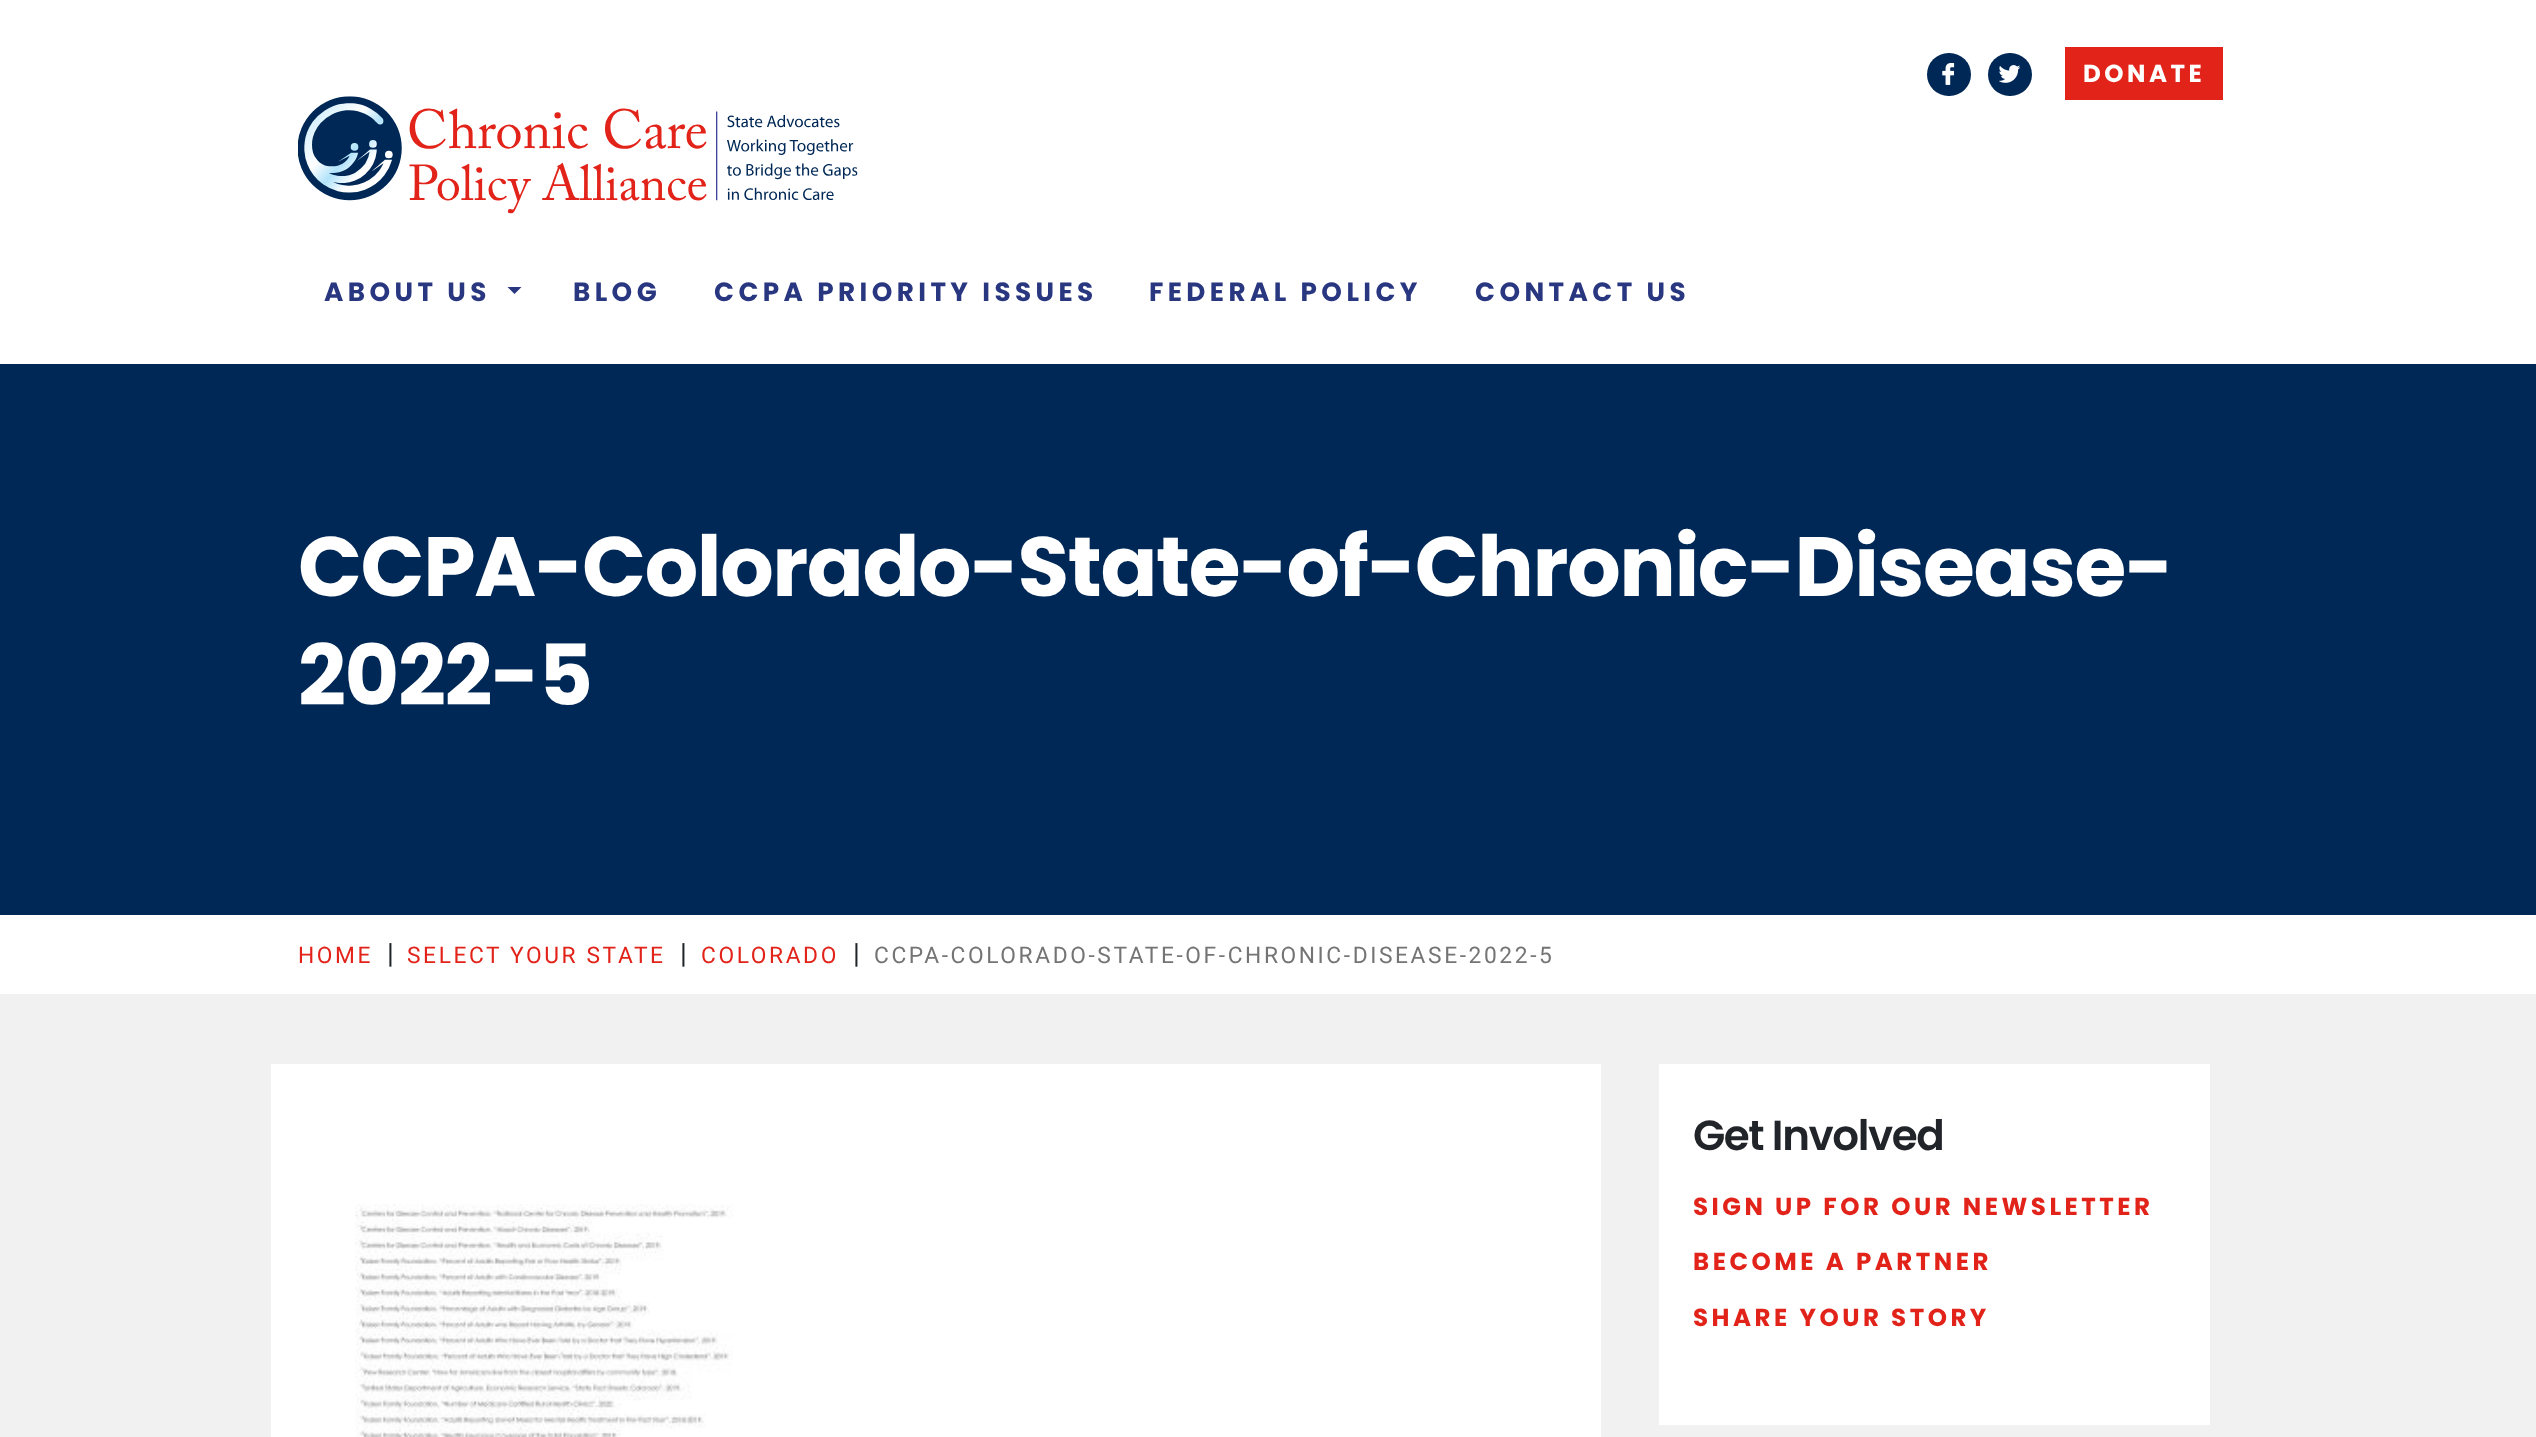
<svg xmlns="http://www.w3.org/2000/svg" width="2536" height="1437">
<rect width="100%" height="100%" fill="#fff"/>
<rect x="1927" y="53" width="44" height="43" rx="21.5" fill="#002856"/>
<image x="1942" y="63" width="13" height="22" href="media/1.png"/>
<rect x="1988" y="53" width="44" height="43" rx="21.5" fill="#002856"/>
<image x="1999" y="65" width="22" height="18" href="media/2.png"/>
<rect x="2065" y="47" width="158" height="53" fill="#e2231a"/>
<text x="2083" y="82" style="font-family:Poppins;font-size:24.5px;font-weight:bold;letter-spacing:3.5px;fill:#fff">DONATE</text>
<image x="298" y="96" width="560" height="118" href="media/3.png"/>
<text x="324" y="301" style="font-family:Poppins;font-size:26.25px;font-weight:bold;letter-spacing:4.4px;fill:#293781">ABOUT US</text>
<path d="M507.5 287h14l-7 7z" fill="#293781"/>
<text x="573" y="301" style="font-family:Poppins;font-size:26.25px;font-weight:bold;letter-spacing:4.4px;fill:#293781">BLOG</text>
<text x="714" y="301" style="font-family:Poppins;font-size:26.25px;font-weight:bold;letter-spacing:4.4px;fill:#293781">CCPA PRIORITY ISSUES</text>
<text x="1149" y="301" style="font-family:Poppins;font-size:26.25px;font-weight:bold;letter-spacing:4.4px;fill:#293781">FEDERAL POLICY</text>
<text x="1475" y="301" style="font-family:Poppins;font-size:26.25px;font-weight:bold;letter-spacing:4.4px;fill:#293781">CONTACT US</text>
<rect y="364" width="2536" height="551" fill="#002856"/>
<text x="298" y="596" style="font-family:Poppins;font-size:84px;font-weight:bold;letter-spacing:-1.4px;fill:#fff">CCPA-Colorado-State-of-Chronic-Disease-</text>
<text x="298" y="705" style="font-family:Poppins;font-size:84px;font-weight:bold;letter-spacing:-1.4px;fill:#fff">2022-5</text>
<text x="298" y="963" style="font-family:Roboto;font-size:22.75px;letter-spacing:2.6px;fill:#e2231a">HOME</text>
<text x="387" y="963" style="font-family:Roboto;font-size:28px;fill:#212529">|</text>
<text x="407" y="963" style="font-family:Roboto;font-size:22.75px;letter-spacing:2.6px;fill:#e2231a">SELECT YOUR STATE</text>
<text x="680" y="963" style="font-family:Roboto;font-size:28px;fill:#212529">|</text>
<text x="701" y="963" style="font-family:Roboto;font-size:22.75px;letter-spacing:2.6px;fill:#e2231a">COLORADO</text>
<text x="853" y="963" style="font-family:Roboto;font-size:28px;fill:#212529">|</text>
<text x="874" y="963" style="font-family:Roboto;font-size:22.75px;letter-spacing:2.6px;fill:#747474">CCPA-COLORADO-STATE-OF-CHRONIC-DISEASE-2022-5</text>
<rect y="994" width="2536" height="443" fill="#f1f1f1"/>
<rect x="271" y="1064" width="1330" height="373" fill="#fff"/>
<image x="355" y="1204" width="378" height="233" href="media/4.png"/>
<rect x="1659" y="1064" width="551" height="361" fill="#fff"/>
<text x="1693" y="1150" style="font-family:Poppins;font-size:42px;font-weight:600;letter-spacing:-1.4px;fill:#212529">Get Involved</text>
<text x="1693" y="1215" style="font-family:Poppins;font-size:24.5px;font-weight:bold;letter-spacing:3.5px;fill:#e2231a">SIGN UP FOR OUR NEWSLETTER</text>
<text x="1693" y="1270" style="font-family:Poppins;font-size:24.5px;font-weight:bold;letter-spacing:3.5px;fill:#e2231a">BECOME A PARTNER</text>
<text x="1693" y="1326" style="font-family:Poppins;font-size:24.5px;font-weight:bold;letter-spacing:3.5px;fill:#e2231a">SHARE YOUR STORY</text>
</svg>
